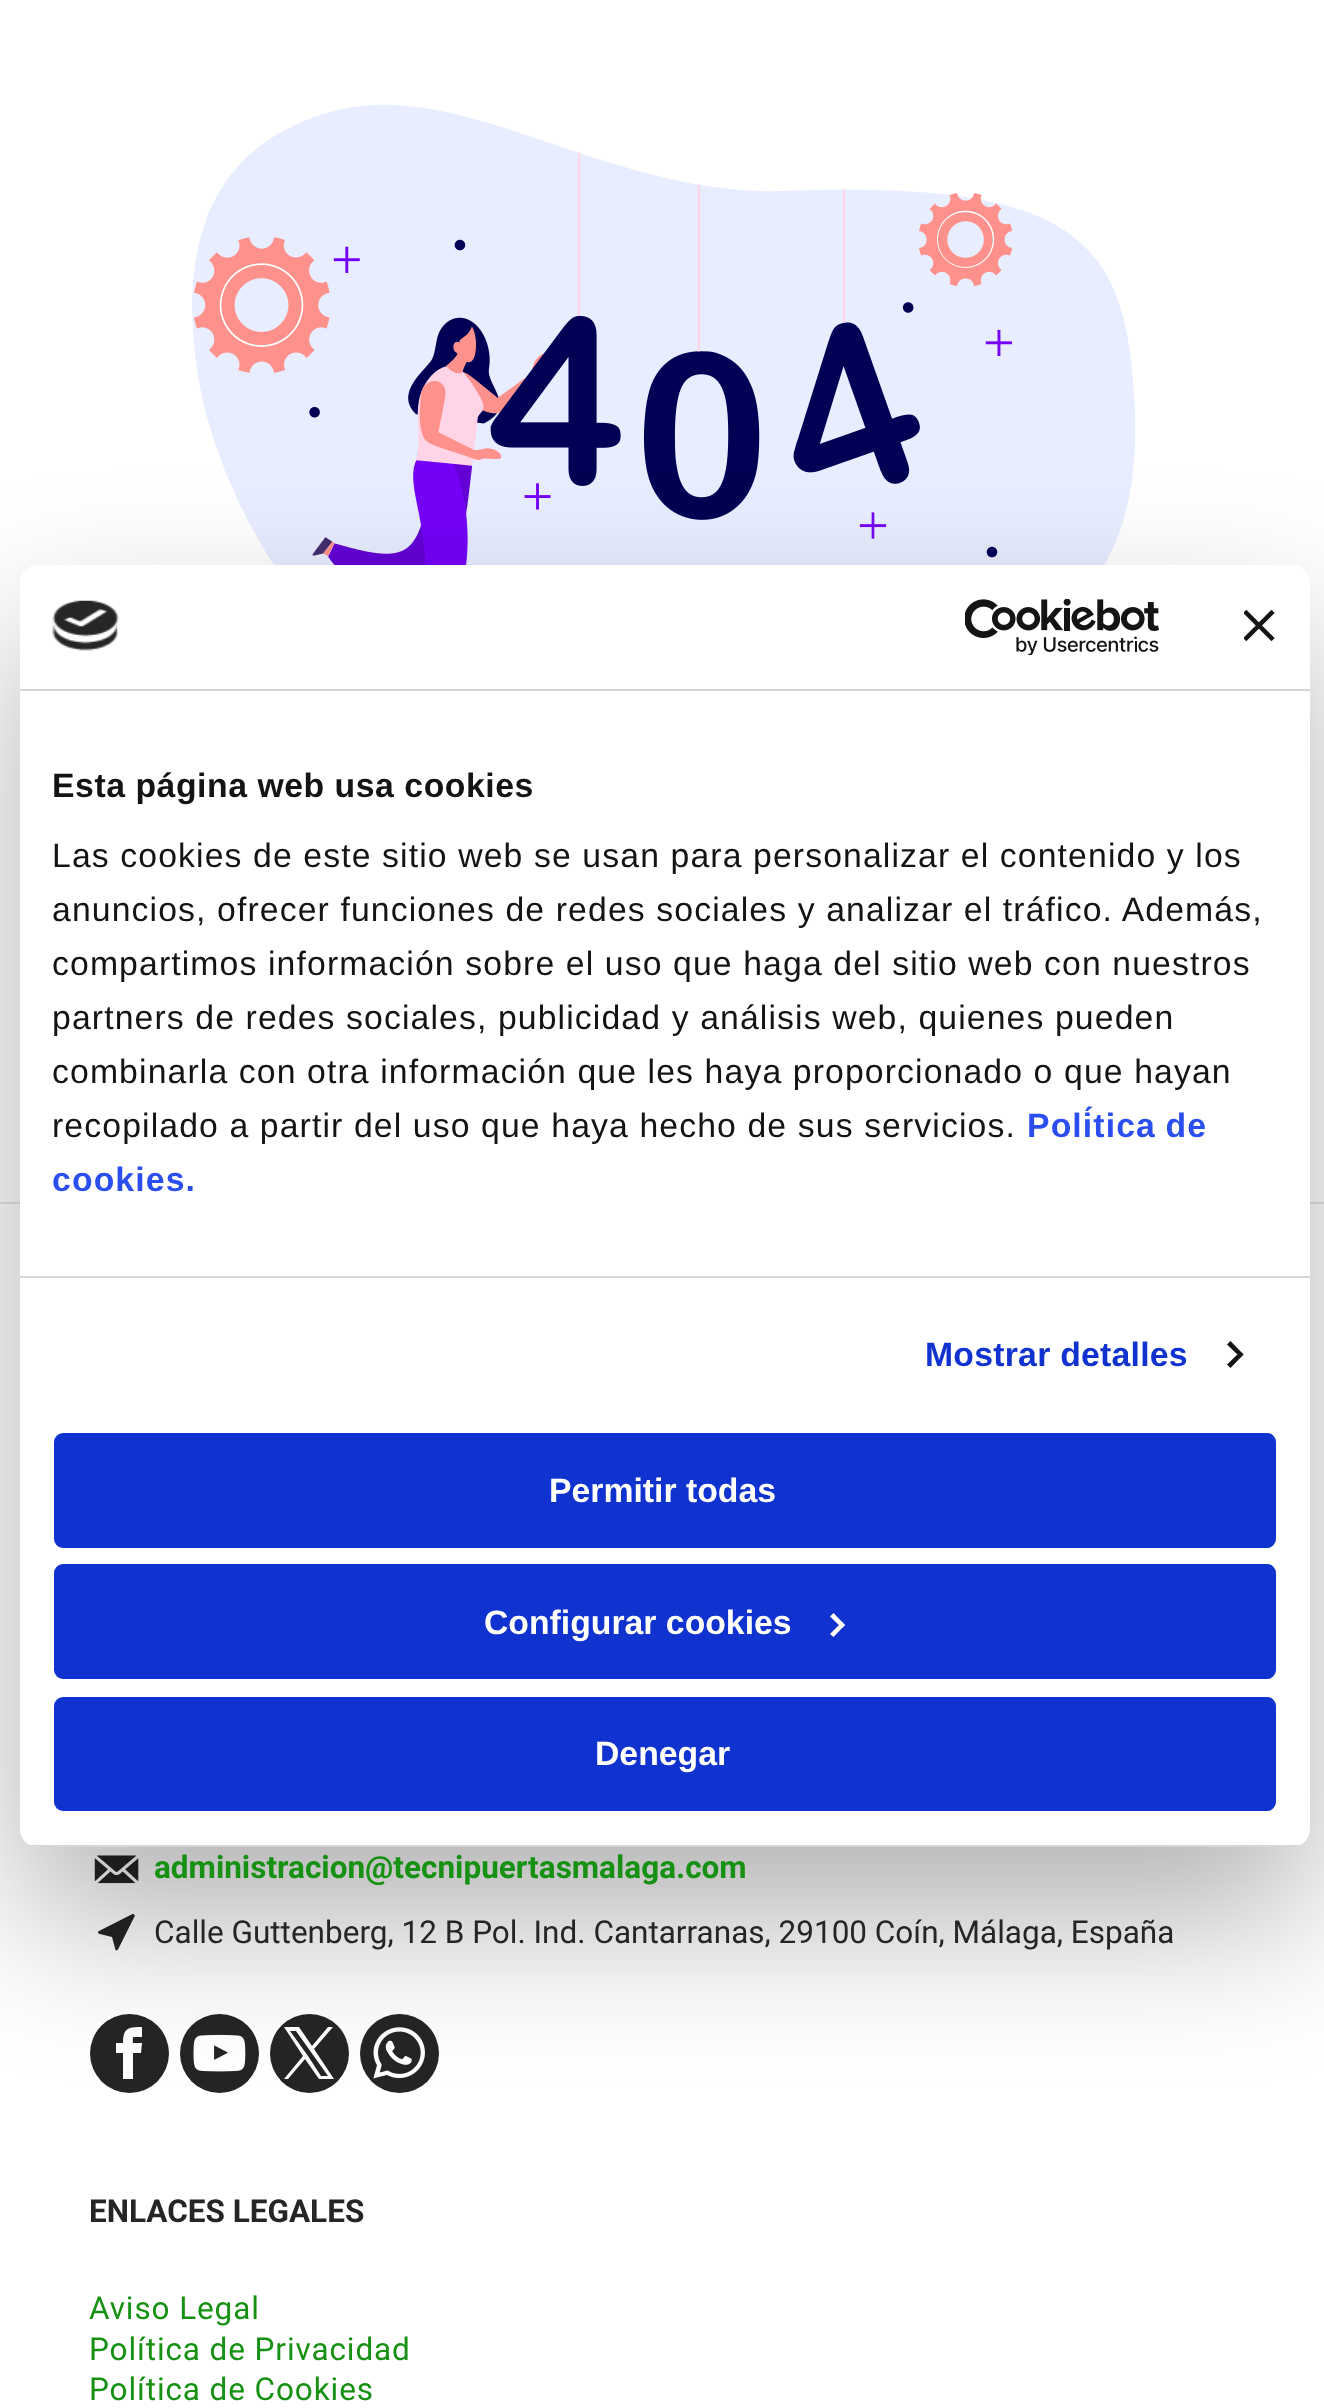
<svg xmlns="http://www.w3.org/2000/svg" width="1324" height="2408">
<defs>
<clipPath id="clip1"><rect x="20" y="565" width="1290" height="1282" rx="18"/></clipPath>
</defs>
<rect width="100%" height="100%" fill="#fff"/>
<image x="192" y="104" width="944" height="461" href="media/4.png"/>
<rect y="1202" width="1324" height="2" fill="#e5e5e5"/>
<image x="94" y="1855" width="45" height="29" href="media/5.png"/>
<path d="M118 1949.5l-1.5 1l-1-.5l-3.5-13l-12-3c-2 0-2.5-2.5-1-3l33.5-17c1-.5 3 1 2 2.5z" fill="#252525" fill-rule="evenodd"/>
<circle cx="129.5" cy="2053.5" r="39.5" fill="#252525"/>
<path d="M134 2037h8v-10c-14 0-19 1-19 16h-7v10h7v26h10v-26h8l1-10h-9c0-1-1-6 1-6z" fill="#fff"/>
<circle cx="219.5" cy="2053.5" r="39.5" fill="#252525"/>
<image x="193" y="2034" width="53" height="38" href="media/6.png"/>
<circle cx="309.5" cy="2053.5" r="39.5" fill="#252525"/>
<path d="M314 2049l19-22h-5l-16 19l-13-19h-15l19 29l-19 23h4l17-20l14 20h15zm-6 7l-18-25h6l32 45h-7z" fill="#fff"/>
<circle cx="399.5" cy="2053.5" r="39.5" fill="#252525"/>
<image x="373" y="2027" width="52" height="52" href="media/7.png"/>
<rect x="20" y="637" width="1290" height="1282" rx="18" fill="#0000004d" filter="blur(76.5px)"/>
<rect x="20" y="565" width="1290" height="1282" rx="18" fill="#fff"/>
<rect x="20" y="689" width="1290" height="2" fill="#d6d6d6"/>
<image x="52" y="600" width="67" height="51" href="media/1.png"/>
<image x="965" y="599" width="194" height="56" href="media/2.png"/>
<image x="1244" y="610" width="31" height="31" href="media/3.png"/>
<rect x="20" y="1276" width="1290" height="2" fill="#d6d6d6"/>
<text x="52" y="797" style="font-family:Liberation Sans;font-size:33.75px;font-weight:bold;letter-spacing:0.55px;fill:#141414">Esta página web usa cookies</text>
<text x="52" y="867" style="font-family:Liberation Sans;font-size:33.75px;letter-spacing:1.12px;fill:#141414">Las cookies de este sitio web se usan para personalizar el contenido y los</text>
<text x="52" y="921" style="font-family:Liberation Sans;font-size:33.75px;letter-spacing:1.12px;fill:#141414">anuncios, ofrecer funciones de redes sociales y analizar el tráfico. Además,</text>
<text x="52" y="975" style="font-family:Liberation Sans;font-size:33.75px;letter-spacing:1.12px;fill:#141414">compartimos información sobre el uso que haga del sitio web con nuestros</text>
<text x="52" y="1029" style="font-family:Liberation Sans;font-size:33.75px;letter-spacing:1.12px;fill:#141414">partners de redes sociales, publicidad y análisis web, quienes pueden</text>
<text x="52" y="1083" style="font-family:Liberation Sans;font-size:33.75px;letter-spacing:1.12px;fill:#141414">combinarla con otra información que les haya proporcionado o que hayan</text>
<text x="52" y="1137" style="font-family:Liberation Sans;font-size:33.75px;letter-spacing:1.12px;fill:#141414">recopilado a partir del uso que haya hecho de sus servicios.</text>
<text x="1027" y="1137" word-spacing="-1" style="font-family:Liberation Sans;font-size:33.75px;font-weight:bold;letter-spacing:1.12px;fill:#2a4eef">Política de</text>
<text x="52" y="1191" style="font-family:Liberation Sans;font-size:33.75px;font-weight:bold;letter-spacing:1.12px;fill:#2a4eef">cookies.</text>
<text x="925" y="1366" style="font-family:Liberation Sans;font-size:33.75px;font-weight:bold;letter-spacing:0.25px;fill:#1032cf">Mostrar detalles</text>
<path d="M1230.5 1341l13 13.5l-3 3l-13.5-13z" fill="#141414"/>
<path d="M1240.5 1351.5l3 3l-13 13.5l-3.5-3.5z" fill="#141414"/>
<g clip-path="url(#clip1)">
<rect x="30" y="1845" width="1270" height="2" fill="#d6d6d6"/>
</g>
<rect x="56.5" y="1435.5" width="1217" height="110" rx="6.5" fill="#1032cf" stroke="#1032cf" stroke-width="5"/>
<text x="549" y="1502" style="font-family:Liberation Sans;font-size:33.75px;font-weight:bold;fill:#fff">Permitir todas</text>
<rect x="56.5" y="1566.5" width="1217" height="110" rx="6.5" fill="#1032cf" stroke="#1032cf" stroke-width="5"/>
<text x="484" y="1634" style="font-family:Liberation Sans;font-size:33.75px;font-weight:bold;fill:#fff">Configurar cookies</text>
<path d="M833.5 1613l11.5 12l-3 3l-12-11.5z" fill="#fff"/>
<path d="M842 1622l3 3l-11.5 12l-3.5-3z" fill="#fff"/>
<rect x="56.5" y="1699.5" width="1217" height="109" rx="6.5" fill="#1032cf" stroke="#1032cf" stroke-width="5"/>
<text x="595" y="1765" style="font-family:Liberation Sans;font-size:33.75px;font-weight:bold;fill:#fff">Denegar</text>
<text x="154" y="1878" style="font-family:Roboto;font-size:31.5px;font-weight:bold;fill:#179113">administracion@tecnipuertasmalaga.com</text>
<text x="154" y="1943" style="font-family:Roboto;font-size:31.5px;fill:#252525">Calle Guttenberg, 12 B Pol. Ind. Cantarranas, 29100 Coín, Málaga, España</text>
<text x="89" y="2222" style="font-family:Roboto;font-size:31.5px;font-weight:bold;fill:#252525">ENLACES LEGALES</text>
<text x="89" y="2319" style="font-family:Roboto;font-size:31.5px;letter-spacing:0.9px;fill:#179113">Aviso Legal</text>
<text x="89" y="2360" style="font-family:Roboto;font-size:31.5px;letter-spacing:0.9px;fill:#179113">Política de Privacidad</text>
<text x="89" y="2400" style="font-family:Roboto;font-size:31.5px;letter-spacing:0.9px;fill:#179113">Política de Cookies</text>
</svg>
